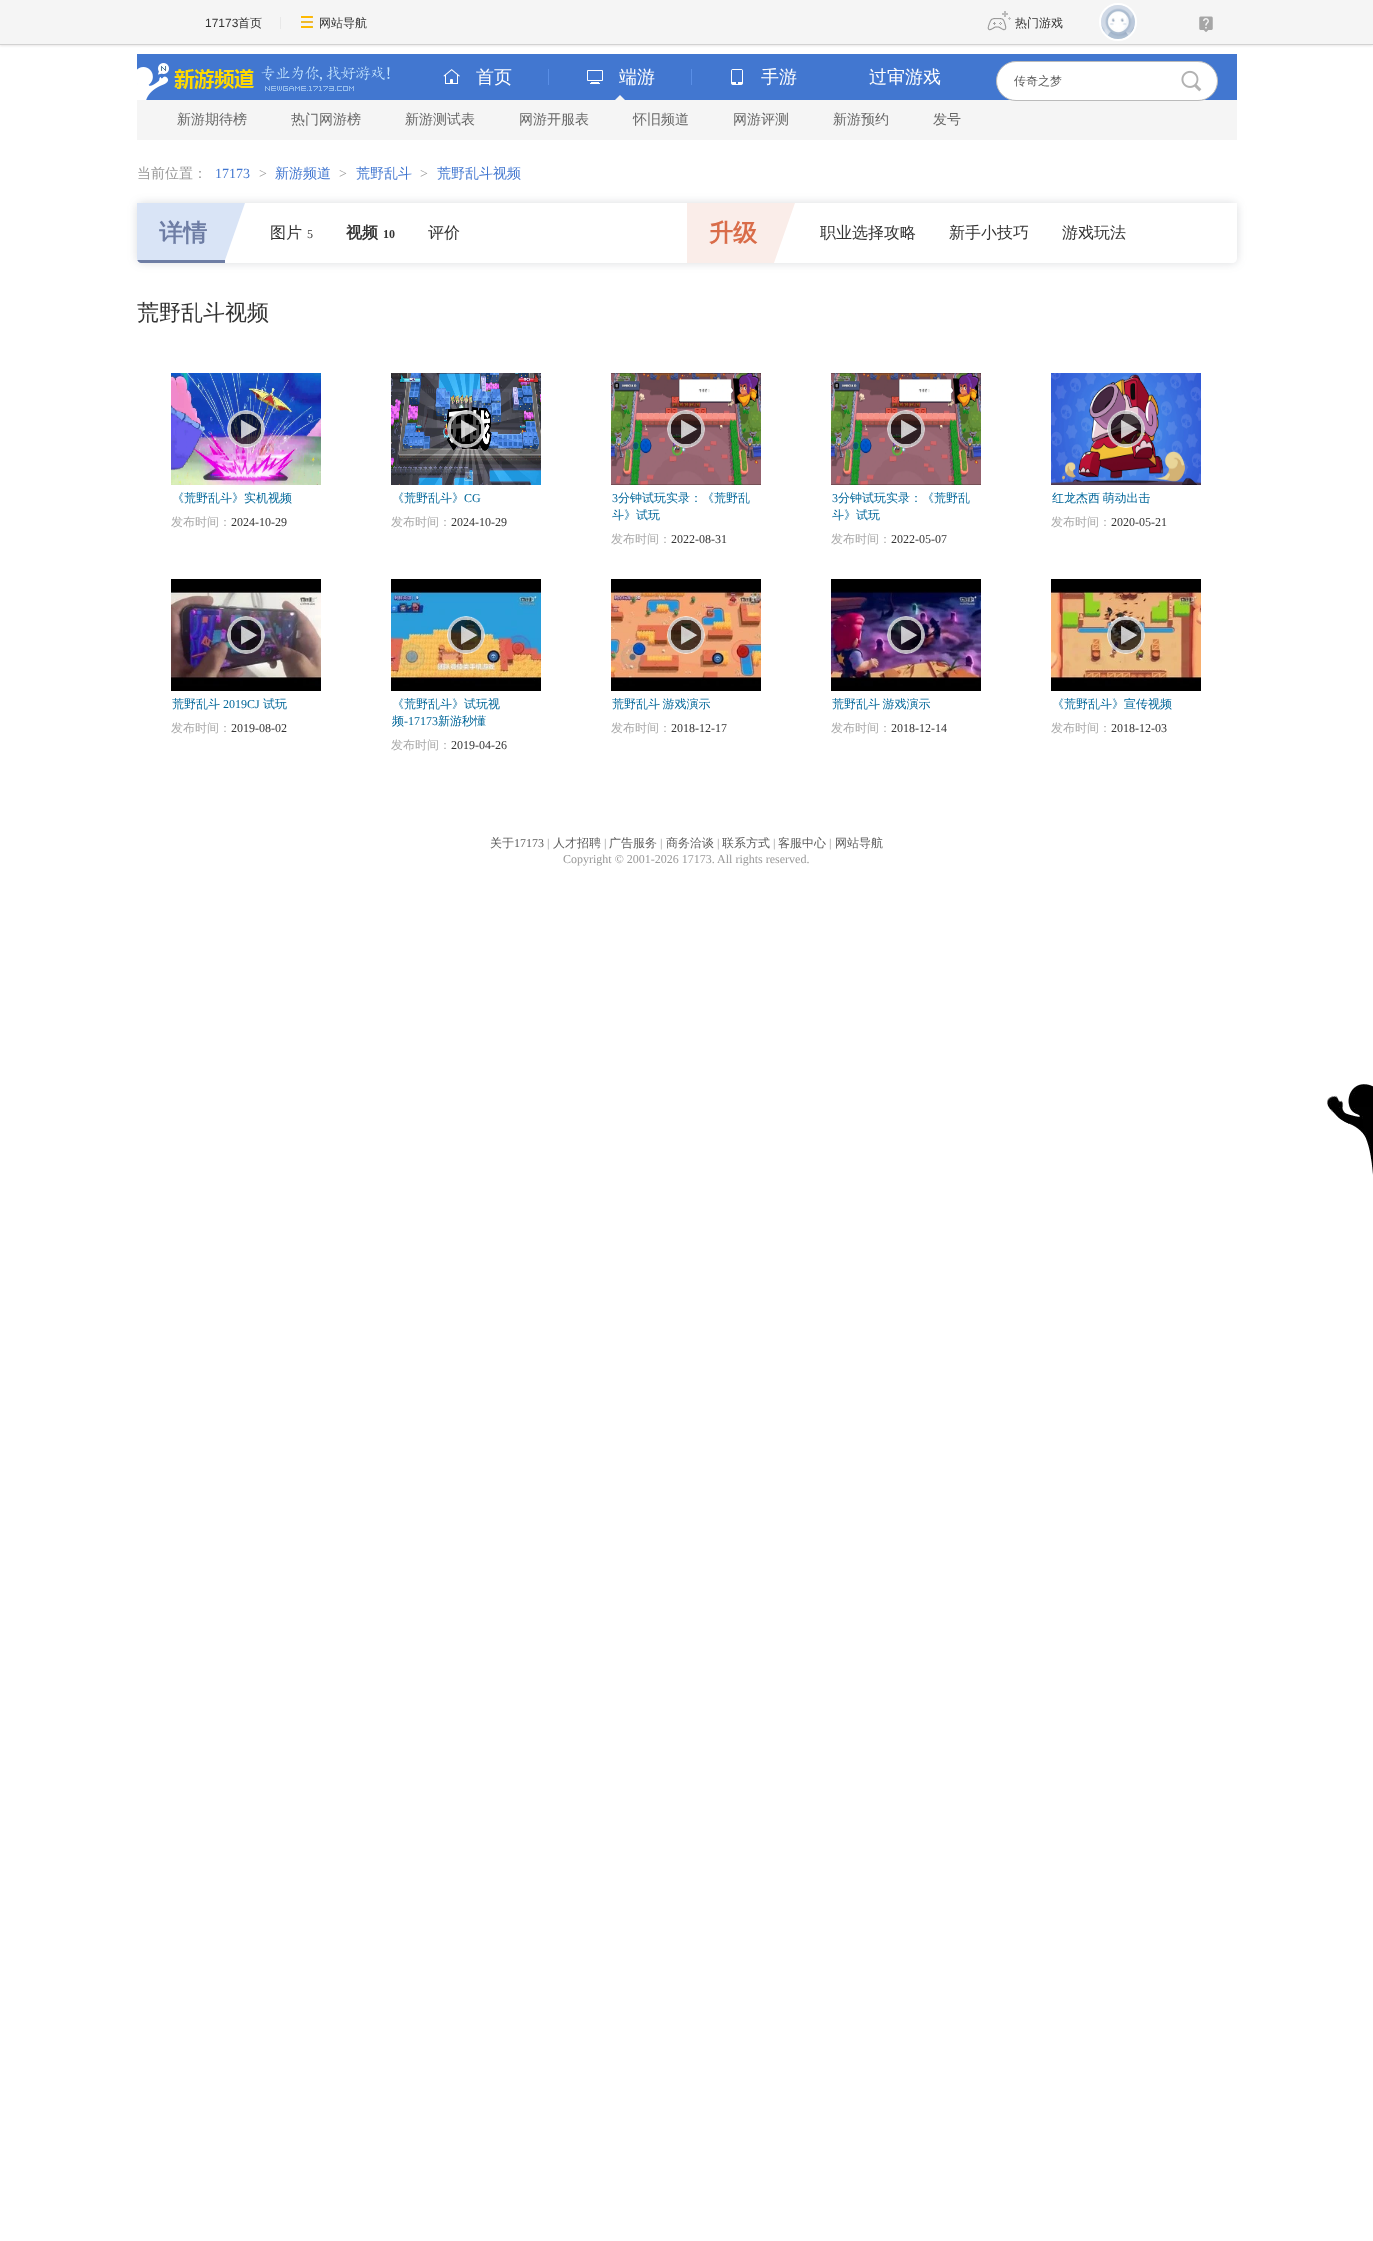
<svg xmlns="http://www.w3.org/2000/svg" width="1373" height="2241">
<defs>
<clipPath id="clip1"><path d="M137 203h550v55c0 3-2 5-5 5h-540c-3 0-5-2-5-5z"/></clipPath>
<clipPath id="clip2"><rect x="687" y="203" width="550" height="60"/></clipPath>
</defs>
<rect width="100%" height="100%" fill="#fff"/>
<rect y="1" width="1373" height="45" fill="#e8e6e6" filter="blur(1px)"/>
<rect width="1373" height="44" fill="#f5f5f5"/>
<rect y="44" width="1373" height="1" fill="#d2d2d2"/>
<text x="205" y="27" style="font-family:Liberation Sans;font-size:12px;fill:#333">17173</text>
<text x="238" y="27" style="font-family:WenQuanYi Zen Hei;font-size:12px;font-weight:500;fill:#333">首页</text>
<rect x="280" y="17" width="1" height="12" fill="#e8e8e8"/>
<image x="301" y="16" width="12" height="12" href="media/1.png"/>
<text x="319" y="27" style="font-family:WenQuanYi Zen Hei;font-size:12px;font-weight:500;fill:#333">网站导航</text>
<image x="987" y="11" width="24" height="20" href="media/2.png"/>
<text x="1015" y="27" style="font-family:WenQuanYi Zen Hei;font-size:12px;font-weight:500;fill:#333">热门游戏</text>
<circle cx="1118" cy="22" r="18" fill="none" stroke="#fff" stroke-width="2"/>
<image x="1101" y="5" width="34" height="34" href="media/3.png"/>
<image x="1199" y="16" width="14" height="16" href="media/4.png"/>
<rect x="137" y="54" width="1100" height="46" fill="#4277d0"/>
<image x="443" y="69" width="17" height="15" href="media/5.png"/>
<text x="476" y="83" style="font-family:WenQuanYi Zen Hei;font-size:18px;font-weight:500;fill:#fff">首页</text>
<rect x="548" y="69" width="1" height="16" fill="#598ee6"/>
<image x="587" y="70" width="16" height="14" href="media/6.png"/>
<text x="619" y="83" style="font-family:WenQuanYi Zen Hei;font-size:18px;font-weight:500;fill:#fff">端游</text>
<path d="M625 100h-10l5-5z" fill="#f5f5f5"/>
<rect x="691" y="69" width="1" height="16" fill="#598ee6"/>
<image x="731" y="69" width="12" height="16" href="media/7.png"/>
<text x="761" y="83" style="font-family:WenQuanYi Zen Hei;font-size:18px;font-weight:500;fill:#fff">手游</text>
<text x="869" y="83" style="font-family:WenQuanYi Zen Hei;font-size:18px;font-weight:500;fill:#fff">过审游戏</text>
<rect x="137" y="100" width="1100" height="40" fill="#f5f5f5"/>
<text x="177" y="124" style="font-family:WenQuanYi Zen Hei;font-size:14px;font-weight:500;fill:#666">新游期待榜</text>
<text x="291" y="124" style="font-family:WenQuanYi Zen Hei;font-size:14px;font-weight:500;fill:#666">热门网游榜</text>
<text x="405" y="124" style="font-family:WenQuanYi Zen Hei;font-size:14px;font-weight:500;fill:#666">新游测试表</text>
<text x="519" y="124" style="font-family:WenQuanYi Zen Hei;font-size:14px;font-weight:500;fill:#666">网游开服表</text>
<text x="633" y="124" style="font-family:WenQuanYi Zen Hei;font-size:14px;font-weight:500;fill:#666">怀旧频道</text>
<text x="733" y="124" style="font-family:WenQuanYi Zen Hei;font-size:14px;font-weight:500;fill:#666">网游评测</text>
<text x="833" y="124" style="font-family:WenQuanYi Zen Hei;font-size:14px;font-weight:500;fill:#666">新游预约</text>
<text x="933" y="124" style="font-family:WenQuanYi Zen Hei;font-size:14px;font-weight:500;fill:#666">发号</text>
<image x="137" y="63" width="117" height="37" href="media/8.png"/>
<image x="261" y="66" width="129" height="25" href="media/9.png"/>
<rect x="996.5" y="61.5" width="221" height="39" rx="19.5" fill="#fff" stroke="#bbb"/>
<text x="1014" y="85" style="font-family:WenQuanYi Zen Hei;font-size:12px;font-weight:500;fill:#5c5c5c">传奇之梦</text>
<image x="1181" y="70" width="21" height="22" href="media/10.png"/>
<text x="137" y="178" style="font-family:WenQuanYi Zen Hei;font-size:14px;font-weight:500;fill:#999">当前位置：</text>
<text x="215" y="178" style="font-family:Liberation Serif;font-size:14px;fill:#4277d0">17173</text>
<text x="259" y="178" style="font-family:Liberation Serif;font-size:14px;fill:#999">&gt;</text>
<text x="275" y="178" style="font-family:WenQuanYi Zen Hei;font-size:14px;font-weight:500;fill:#4277d0">新游频道</text>
<text x="339" y="178" style="font-family:Liberation Serif;font-size:14px;fill:#999">&gt;</text>
<text x="356" y="178" style="font-family:WenQuanYi Zen Hei;font-size:14px;font-weight:500;fill:#4277d0">荒野乱斗</text>
<text x="420" y="178" style="font-family:Liberation Serif;font-size:14px;fill:#999">&gt;</text>
<text x="437" y="178" style="font-family:WenQuanYi Zen Hei;font-size:14px;font-weight:500;fill:#4277d0">荒野乱斗视频</text>
<rect x="137" y="203" width="1100" height="60" rx="5" fill="#414b5a33" filter="blur(5px)"/>
<path d="M137 203h1100v55c0 3-2 5-5 5h-1090c-3 0-5-2-5-5z" fill="#fff"/>
<path d="M137 203v55c0 3 2 5 5 5h82l21-60z" fill="#d9e4f6"/>
<text x="159" y="241" style="font-family:WenQuanYi Zen Hei;font-size:24px;font-weight:bold;fill:#6e7da4">详情</text>
<g clip-path="url(#clip1)">
<rect x="137" y="260" width="88" height="3" fill="#6e7da4"/>
</g>
<text x="270" y="238" style="font-family:WenQuanYi Zen Hei;font-size:16px;font-weight:500;fill:#333">图片</text>
<text x="307" y="238" style="font-family:Liberation Serif;font-size:12px;fill:#333">5</text>
<text x="346" y="238" style="font-family:WenQuanYi Zen Hei;font-size:16px;font-weight:bold;fill:#333">视频</text>
<text x="383" y="238" style="font-family:Liberation Serif;font-size:12px;font-weight:bold;fill:#333">10</text>
<text x="428" y="238" style="font-family:WenQuanYi Zen Hei;font-size:16px;font-weight:500;fill:#333">评价</text>
<g clip-path="url(#clip2)">
<path d="M677 203h118l-21 60h-118z" fill="#faede9"/>
</g>
<text x="709" y="241" style="font-family:WenQuanYi Zen Hei;font-size:24px;font-weight:bold;fill:#d96c49">升级</text>
<text x="820" y="238" style="font-family:WenQuanYi Zen Hei;font-size:16px;font-weight:500;fill:#333">职业选择攻略</text>
<text x="949" y="238" style="font-family:WenQuanYi Zen Hei;font-size:16px;font-weight:500;fill:#333">新手小技巧</text>
<text x="1062" y="238" style="font-family:WenQuanYi Zen Hei;font-size:16px;font-weight:500;fill:#333">游戏玩法</text>
<text x="137" y="320" style="font-family:WenQuanYi Zen Hei;font-size:22px;font-weight:500;fill:#333">荒野乱斗视频</text>
<image x="171" y="373" width="150" height="112" href="media/11.png"/>
<image x="227" y="410" width="38" height="38" href="media/12.png"/>
<text x="172" y="502" style="font-family:WenQuanYi Zen Hei;font-size:12px;font-weight:500;fill:#069">《荒野乱斗》实机视频</text>
<text x="171" y="526" style="font-family:WenQuanYi Zen Hei;font-size:12px;font-weight:500;fill:#aaa">发布时间：</text>
<text x="231" y="526" style="font-family:Liberation Serif;font-size:12px;fill:#333">2024-10-29</text>
<image x="391" y="373" width="150" height="112" href="media/13.png"/>
<image x="447" y="410" width="38" height="38" href="media/14.png"/>
<text x="392" y="502" style="font-family:WenQuanYi Zen Hei;font-size:12px;font-weight:500;fill:#069">《荒野乱斗》</text>
<text x="464" y="502" style="font-family:Liberation Serif;font-size:12px;fill:#069">CG</text>
<text x="391" y="526" style="font-family:WenQuanYi Zen Hei;font-size:12px;font-weight:500;fill:#aaa">发布时间：</text>
<text x="451" y="526" style="font-family:Liberation Serif;font-size:12px;fill:#333">2024-10-29</text>
<image x="611" y="373" width="150" height="112" href="media/15.png"/>
<image x="667" y="410" width="38" height="38" href="media/16.png"/>
<text x="612" y="502" style="font-family:Liberation Serif;font-size:12px;fill:#069">3</text>
<text x="618" y="502" style="font-family:WenQuanYi Zen Hei;font-size:12px;font-weight:500;fill:#069">分钟试玩实录：《荒野乱</text>
<text x="612" y="519" style="font-family:WenQuanYi Zen Hei;font-size:12px;font-weight:500;fill:#069">斗》试玩</text>
<text x="611" y="543" style="font-family:WenQuanYi Zen Hei;font-size:12px;font-weight:500;fill:#aaa">发布时间：</text>
<text x="671" y="543" style="font-family:Liberation Serif;font-size:12px;fill:#333">2022-08-31</text>
<image x="831" y="373" width="150" height="112" href="media/15.png"/>
<image x="887" y="410" width="38" height="38" href="media/16.png"/>
<text x="832" y="502" style="font-family:Liberation Serif;font-size:12px;fill:#069">3</text>
<text x="838" y="502" style="font-family:WenQuanYi Zen Hei;font-size:12px;font-weight:500;fill:#069">分钟试玩实录：《荒野乱</text>
<text x="832" y="519" style="font-family:WenQuanYi Zen Hei;font-size:12px;font-weight:500;fill:#069">斗》试玩</text>
<text x="831" y="543" style="font-family:WenQuanYi Zen Hei;font-size:12px;font-weight:500;fill:#aaa">发布时间：</text>
<text x="891" y="543" style="font-family:Liberation Serif;font-size:12px;fill:#333">2022-05-07</text>
<image x="1051" y="373" width="150" height="112" href="media/17.png"/>
<image x="1107" y="410" width="38" height="38" href="media/18.png"/>
<text x="1052" y="502" word-spacing="-1" style="font-family:WenQuanYi Zen Hei;font-size:12px;font-weight:500;fill:#069">红龙杰西 萌动出击</text>
<text x="1051" y="526" style="font-family:WenQuanYi Zen Hei;font-size:12px;font-weight:500;fill:#aaa">发布时间：</text>
<text x="1111" y="526" style="font-family:Liberation Serif;font-size:12px;fill:#333">2020-05-21</text>
<image x="171" y="579" width="150" height="112" href="media/19.png"/>
<image x="227" y="616" width="38" height="38" href="media/20.png"/>
<text x="172" y="708" style="font-family:WenQuanYi Zen Hei;font-size:12px;font-weight:500;fill:#069">荒野乱斗</text>
<text x="223" y="708" style="font-family:Liberation Serif;font-size:12px;fill:#069">2019CJ</text>
<text x="263" y="708" style="font-family:WenQuanYi Zen Hei;font-size:12px;font-weight:500;fill:#069">试玩</text>
<text x="171" y="732" style="font-family:WenQuanYi Zen Hei;font-size:12px;font-weight:500;fill:#aaa">发布时间：</text>
<text x="231" y="732" style="font-family:Liberation Serif;font-size:12px;fill:#333">2019-08-02</text>
<image x="391" y="579" width="150" height="112" href="media/21.png"/>
<image x="447" y="616" width="38" height="38" href="media/22.png"/>
<text x="392" y="708" style="font-family:WenQuanYi Zen Hei;font-size:12px;font-weight:500;fill:#069">《荒野乱斗》试玩视</text>
<text x="392" y="725" style="font-family:WenQuanYi Zen Hei;font-size:12px;font-weight:500;fill:#069">频</text>
<text x="404" y="725" style="font-family:Liberation Serif;font-size:12px;fill:#069">-17173</text>
<text x="438" y="725" style="font-family:WenQuanYi Zen Hei;font-size:12px;font-weight:500;fill:#069">新游秒懂</text>
<text x="391" y="749" style="font-family:WenQuanYi Zen Hei;font-size:12px;font-weight:500;fill:#aaa">发布时间：</text>
<text x="451" y="749" style="font-family:Liberation Serif;font-size:12px;fill:#333">2019-04-26</text>
<image x="611" y="579" width="150" height="112" href="media/23.png"/>
<image x="667" y="616" width="38" height="38" href="media/24.png"/>
<text x="612" y="708" word-spacing="-1" style="font-family:WenQuanYi Zen Hei;font-size:12px;font-weight:500;fill:#069">荒野乱斗 游戏演示</text>
<text x="611" y="732" style="font-family:WenQuanYi Zen Hei;font-size:12px;font-weight:500;fill:#aaa">发布时间：</text>
<text x="671" y="732" style="font-family:Liberation Serif;font-size:12px;fill:#333">2018-12-17</text>
<image x="831" y="579" width="150" height="112" href="media/25.png"/>
<image x="887" y="616" width="38" height="38" href="media/26.png"/>
<text x="832" y="708" word-spacing="-1" style="font-family:WenQuanYi Zen Hei;font-size:12px;font-weight:500;fill:#069">荒野乱斗 游戏演示</text>
<text x="831" y="732" style="font-family:WenQuanYi Zen Hei;font-size:12px;font-weight:500;fill:#aaa">发布时间：</text>
<text x="891" y="732" style="font-family:Liberation Serif;font-size:12px;fill:#333">2018-12-14</text>
<image x="1051" y="579" width="150" height="112" href="media/27.png"/>
<image x="1107" y="616" width="38" height="38" href="media/28.png"/>
<text x="1052" y="708" style="font-family:WenQuanYi Zen Hei;font-size:12px;font-weight:500;fill:#069">《荒野乱斗》宣传视频</text>
<text x="1051" y="732" style="font-family:WenQuanYi Zen Hei;font-size:12px;font-weight:500;fill:#aaa">发布时间：</text>
<text x="1111" y="732" style="font-family:Liberation Serif;font-size:12px;fill:#333">2018-12-03</text>
<text x="490" y="847" style="font-family:WenQuanYi Zen Hei;font-size:12px;font-weight:500;fill:#5c5c5c">关于</text>
<text x="514" y="847" style="font-family:Liberation Serif;font-size:12px;fill:#5c5c5c">17173</text>
<text x="547" y="847" style="font-family:Liberation Serif;font-size:12px;fill:#999">|</text>
<text x="553" y="847" style="font-family:WenQuanYi Zen Hei;font-size:12px;font-weight:500;fill:#5c5c5c">人才招聘</text>
<text x="604" y="847" style="font-family:Liberation Serif;font-size:12px;fill:#999">|</text>
<text x="609" y="847" style="font-family:WenQuanYi Zen Hei;font-size:12px;font-weight:500;fill:#5c5c5c">广告服务</text>
<text x="660" y="847" style="font-family:Liberation Serif;font-size:12px;fill:#999">|</text>
<text x="666" y="847" style="font-family:WenQuanYi Zen Hei;font-size:12px;font-weight:500;fill:#5c5c5c">商务洽谈</text>
<text x="717" y="847" style="font-family:Liberation Serif;font-size:12px;fill:#999">|</text>
<text x="722" y="847" style="font-family:WenQuanYi Zen Hei;font-size:12px;font-weight:500;fill:#5c5c5c">联系方式</text>
<text x="773" y="847" style="font-family:Liberation Serif;font-size:12px;fill:#999">|</text>
<text x="778" y="847" style="font-family:WenQuanYi Zen Hei;font-size:12px;font-weight:500;fill:#5c5c5c">客服中心</text>
<text x="829" y="847" style="font-family:Liberation Serif;font-size:12px;fill:#999">|</text>
<text x="835" y="847" style="font-family:WenQuanYi Zen Hei;font-size:12px;font-weight:500;fill:#5c5c5c">网站导航</text>
<text x="563" y="863" style="font-family:Liberation Serif;font-size:12px;fill:#999">Copyright © 2001-2026 17173. All rights reserved.</text>
<image x="1327" y="1084" width="46" height="91" href="media/29.png"/>
</svg>
